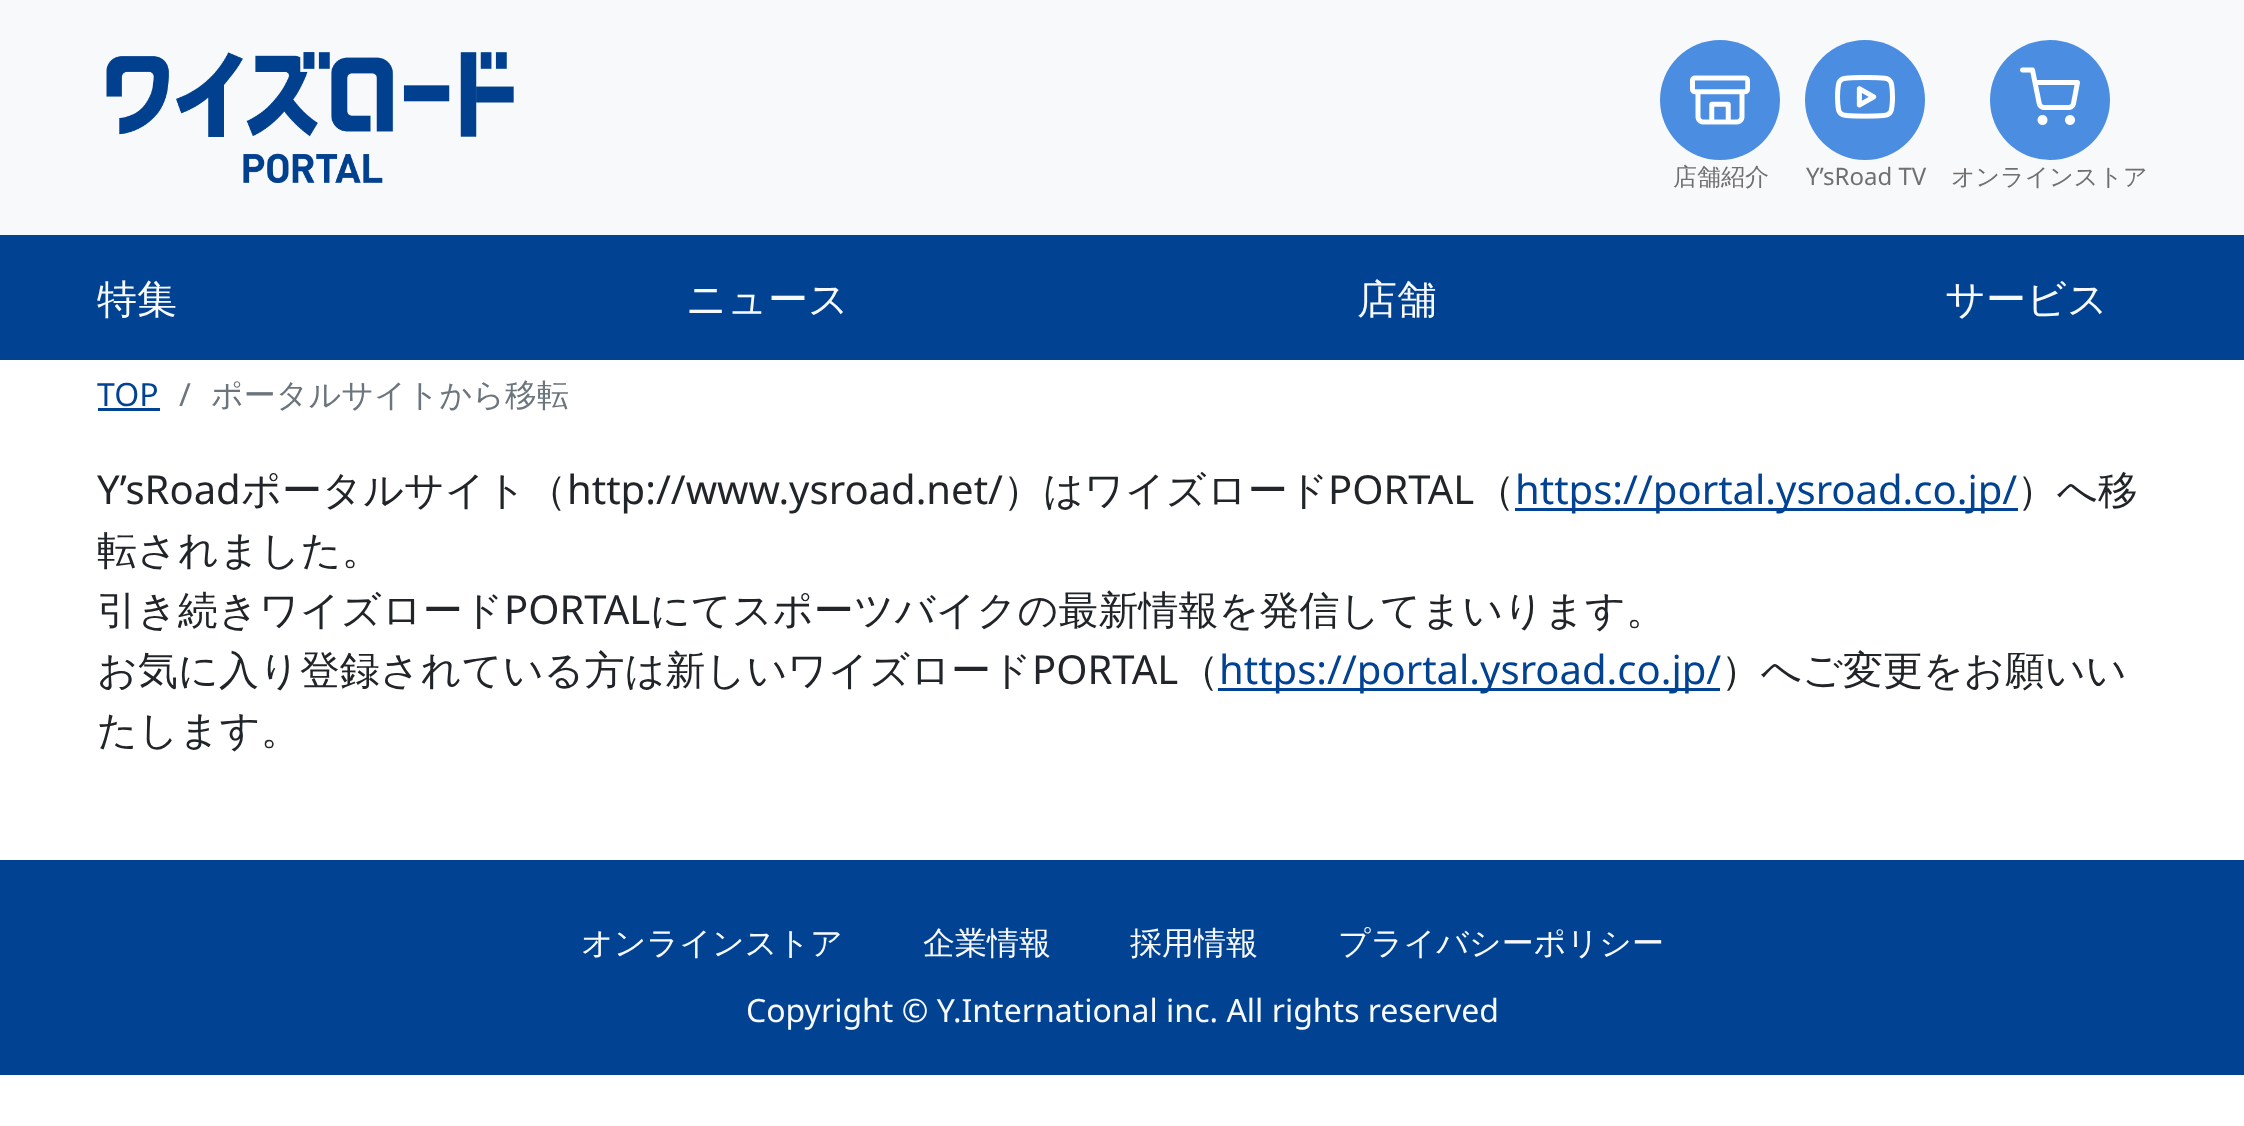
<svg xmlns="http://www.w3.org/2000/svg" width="2244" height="1126">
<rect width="100%" height="100%" fill="#fff"/>
<rect width="2244" height="235" fill="#f8f9fa"/>
<image x="106" y="52" width="408" height="131" href="media/1.png"/>
<circle cx="1720" cy="100" r="60" fill="#4a8de1"/>
<image x="1690" y="75" width="60" height="50" href="media/2.png"/>
<text x="1673" y="185" style="font-family:WenQuanYi Zen Hei;font-size:24px;font-weight:500;fill:#707071">店舗紹介</text>
<circle cx="1865" cy="100" r="60" fill="#4a8de1"/>
<image x="1835" y="75" width="60" height="44" href="media/3.png"/>
<text x="1806" y="185" style="font-family:Noto Sans;font-size:24px;fill:#707071">Y’sRoad TV</text>
<circle cx="2050" cy="100" r="60" fill="#4a8de1"/>
<image x="2020" y="67" width="60" height="58" href="media/4.png"/>
<text x="1951" y="185" style="font-family:WenQuanYi Zen Hei;font-size:24px;font-weight:500;fill:#707071">オンラインストア</text>
<rect y="235" width="2244" height="125" fill="#014293"/>
<text x="97" y="313" style="font-family:WenQuanYi Zen Hei;font-size:40px;font-weight:500;fill:#f8f9fa">特集</text>
<text x="686" y="313" style="font-family:WenQuanYi Zen Hei;font-size:40px;font-weight:500;fill:#f8f9fa">ニュース</text>
<text x="1357" y="313" style="font-family:WenQuanYi Zen Hei;font-size:40px;font-weight:500;fill:#f8f9fa">店舗</text>
<text x="1945" y="313" style="font-family:WenQuanYi Zen Hei;font-size:40px;font-weight:500;fill:#f8f9fa">サービス</text>
<text x="97" y="406" style="font-family:Noto Sans;font-size:32px;fill:#014293">TOP</text>
<rect x="98" y="408" width="62" height="3" fill="#014293"/>
<text x="179" y="406" style="font-family:Noto Sans;font-size:32px;fill:#6c757d">/</text>
<text x="211" y="406" style="font-family:WenQuanYi Zen Hei;font-size:32px;font-weight:500;fill:#6c757d">ポータルサイトから移転</text>
<text x="97" y="504" style="font-family:Noto Sans;font-size:40px;fill:#212529">Y’sRoad</text>
<text x="241" y="504" style="font-family:WenQuanYi Zen Hei;font-size:40px;font-weight:500;fill:#212529">ポータルサイト（</text>
<text x="567" y="504" style="font-family:Noto Sans;font-size:40px;fill:#212529">http://www.ysroad.net/</text>
<text x="1003" y="504" style="font-family:WenQuanYi Zen Hei;font-size:40px;font-weight:500;fill:#212529">）はワイズロード</text>
<text x="1328" y="504" style="font-family:Noto Sans;font-size:40px;fill:#212529">PORTAL</text>
<text x="1475" y="504" style="font-family:WenQuanYi Zen Hei;font-size:40px;font-weight:500;fill:#212529">（</text>
<rect x="1515" y="508" width="503" height="3" fill="#014293"/>
<text x="1515" y="504" style="font-family:Noto Sans;font-size:40px;fill:#014293">https://portal.ysroad.co.jp/</text>
<text x="2017" y="504" style="font-family:WenQuanYi Zen Hei;font-size:40px;font-weight:500;fill:#212529">）へ移</text>
<text x="97" y="564" style="font-family:WenQuanYi Zen Hei;font-size:40px;font-weight:500;fill:#212529">転されました。</text>
<text x="97" y="624" style="font-family:WenQuanYi Zen Hei;font-size:40px;font-weight:500;fill:#212529">引き続きワイズロード</text>
<text x="504" y="624" style="font-family:Noto Sans;font-size:40px;fill:#212529">PORTAL</text>
<text x="650" y="624" style="font-family:WenQuanYi Zen Hei;font-size:40px;font-weight:500;fill:#212529">にてスポーツバイクの最新情報を発信してまいります。</text>
<text x="97" y="684" style="font-family:WenQuanYi Zen Hei;font-size:40px;font-weight:500;fill:#212529">お気に入り登録されている方は新しいワイズロード</text>
<text x="1032" y="684" style="font-family:Noto Sans;font-size:40px;fill:#212529">PORTAL</text>
<text x="1179" y="684" style="font-family:WenQuanYi Zen Hei;font-size:40px;font-weight:500;fill:#212529">（</text>
<rect x="1218" y="688" width="502" height="3" fill="#014293"/>
<text x="1219" y="684" style="font-family:Noto Sans;font-size:40px;fill:#014293">https://portal.ysroad.co.jp/</text>
<text x="1721" y="684" style="font-family:WenQuanYi Zen Hei;font-size:40px;font-weight:500;fill:#212529">）へご変更をお願いい</text>
<text x="97" y="744" style="font-family:WenQuanYi Zen Hei;font-size:40px;font-weight:500;fill:#212529">たします。</text>
<rect y="860" width="2244" height="215" fill="#014293"/>
<text x="581" y="954" style="font-family:WenQuanYi Zen Hei;font-size:32px;font-weight:500;fill:#f8f9fa">オンラインストア</text>
<text x="923" y="954" style="font-family:WenQuanYi Zen Hei;font-size:32px;font-weight:500;fill:#f8f9fa">企業情報</text>
<text x="1130" y="954" style="font-family:WenQuanYi Zen Hei;font-size:32px;font-weight:500;fill:#f8f9fa">採用情報</text>
<text x="1338" y="954" style="font-family:WenQuanYi Zen Hei;font-size:32px;font-weight:500;fill:#f8f9fa">プライバシーポリシー</text>
<text x="746" y="1022" style="font-family:Noto Sans;font-size:32px;fill:#f8f9fa">Copyright © Y.International inc. All rights reserved</text>
</svg>
